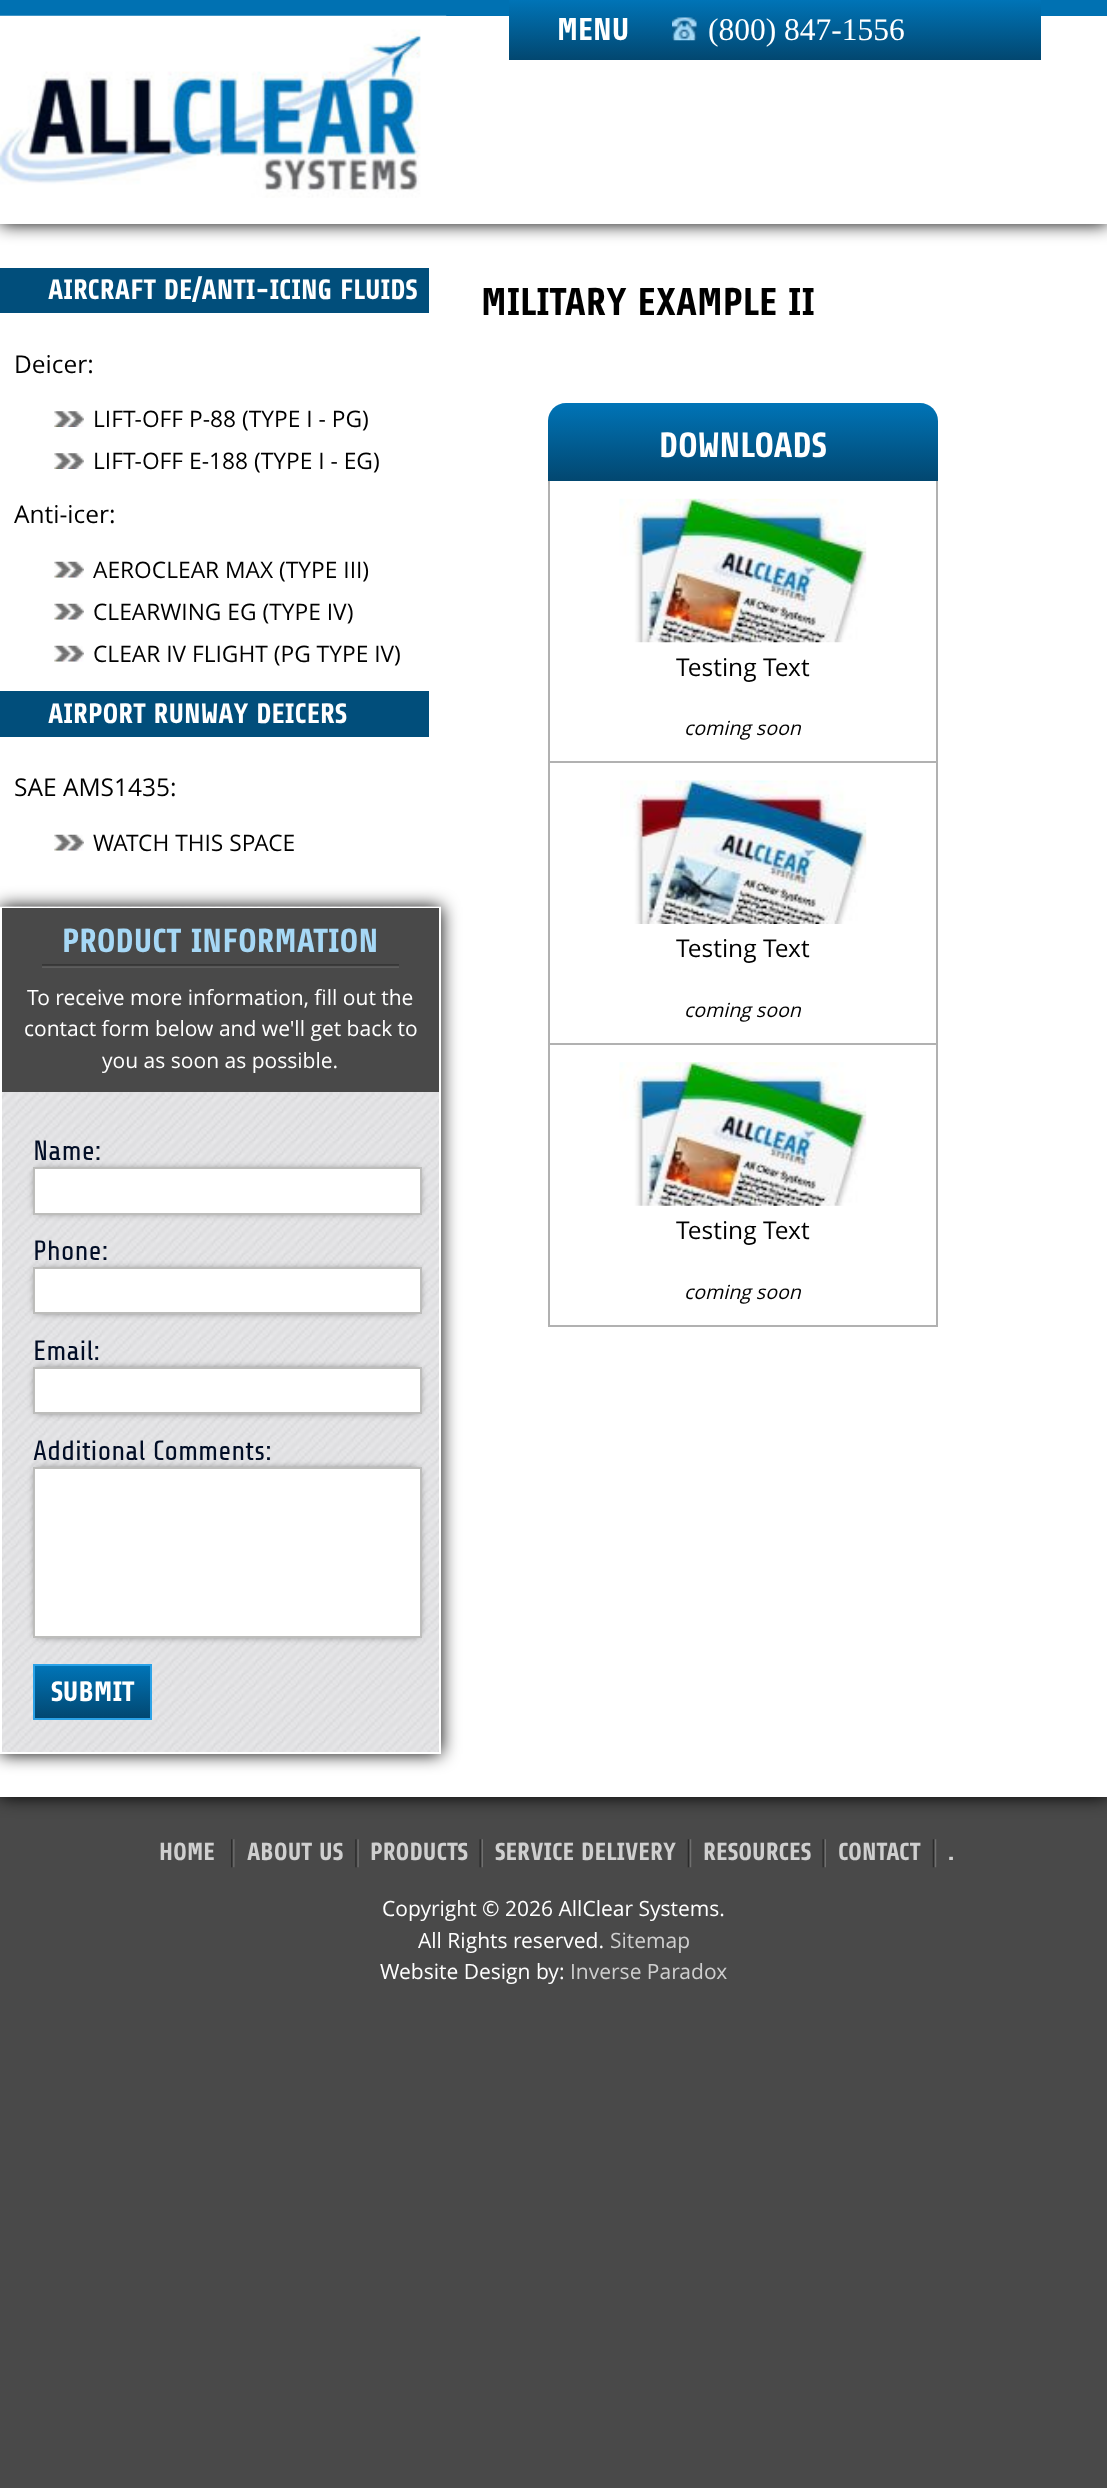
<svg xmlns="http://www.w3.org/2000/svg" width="1107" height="2488">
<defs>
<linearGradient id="g1" gradientUnits="userSpaceOnUse" x1="775" y1="0" x2="775" y2="60"><stop offset="0" stop-color="#0074b7"/><stop offset="1" stop-color="#024770"/></linearGradient>
<linearGradient id="g2" gradientUnits="userSpaceOnUse" x1="93" y1="1666" x2="93" y2="1719"><stop offset="0" stop-color="#0074b7"/><stop offset="1" stop-color="#024770"/></linearGradient>
<linearGradient id="g3" gradientUnits="userSpaceOnUse" x1="743" y1="403" x2="743" y2="481"><stop offset="0" stop-color="#0074b7"/><stop offset="1" stop-color="#024770"/></linearGradient>
</defs>
<rect width="100%" height="100%" fill="#494949"/>
<rect y="224" width="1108" height="1573" fill="#000" filter="blur(9px)"/>
<rect y="224" width="1107" height="1573" fill="#fff"/>
<rect width="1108" height="224" fill="#000" filter="blur(9px)"/>
<rect y="16" width="1107" height="208" fill="#fff"/>
<rect width="1107" height="16" fill="#0071b2"/>
<image x="0" y="15" width="447" height="183" href="media/1.png"/>
<rect x="509" width="532" height="60" fill="url(#g1)"/>
<text x="557" y="40" style="font-family:Share;font-size:31.5px;font-weight:bold;fill:#fff">MENU</text>
<image x="672" y="17" width="25" height="24" href="media/2.png"/>
<text x="708" y="40" style="font-family:Liberation Serif;font-size:31.5px;fill:#fff">(800) 847-1556</text>
<rect y="268" width="429" height="45" fill="#014e7b"/>
<text x="48" y="299" style="font-family:Share;font-size:28px;font-weight:bold;fill:#fff">AIRCRAFT DE/ANTI-ICING FLUIDS</text>
<text x="14" y="373" style="font-family:Open Sans;font-size:24.5px;fill:#000">Deicer:</text>
<image x="54" y="411" width="30" height="16" href="media/3.png"/>
<text x="93" y="427" style="font-family:Open Sans;font-size:22.75px;fill:#000">LIFT-OFF P-88 (TYPE I - PG)</text>
<image x="54" y="453" width="30" height="16" href="media/3.png"/>
<text x="93" y="469" style="font-family:Open Sans;font-size:22.75px;fill:#000">LIFT-OFF E-188 (TYPE I - EG)</text>
<text x="14" y="523" style="font-family:Open Sans;font-size:24.5px;fill:#000">Anti-icer:</text>
<image x="54" y="561" width="30" height="17" href="media/4.png"/>
<text x="93" y="578" style="font-family:Open Sans;font-size:22.75px;fill:#000">AEROCLEAR MAX (TYPE III)</text>
<image x="54" y="603" width="30" height="17" href="media/4.png"/>
<text x="93" y="620" style="font-family:Open Sans;font-size:22.75px;fill:#000">CLEARWING EG (TYPE IV)</text>
<image x="54" y="645" width="30" height="17" href="media/4.png"/>
<text x="93" y="662" style="font-family:Open Sans;font-size:22.75px;fill:#000">CLEAR IV FLIGHT (PG TYPE IV)</text>
<rect y="691" width="429" height="46" fill="#014e7b"/>
<text x="48" y="723" style="font-family:Share;font-size:28px;font-weight:bold;fill:#fff">AIRPORT RUNWAY DEICERS</text>
<text x="14" y="796" style="font-family:Open Sans;font-size:24.5px;fill:#000">SAE AMS1435:</text>
<image x="54" y="834" width="30" height="17" href="media/4.png"/>
<text x="93" y="851" style="font-family:Open Sans;font-size:22.75px;fill:#000">WATCH THIS SPACE</text>
<rect y="907" width="441" height="847" fill="#000" filter="blur(9px)"/>
<image x="0" y="906" width="441" height="846" href="media/5.png"/>
<rect x="1" y="908" width="439" height="845" fill="none" stroke="#fff" stroke-width="2"/>
<rect x="2" y="908" width="437" height="184" fill="#494949"/>
<image x="42" y="964" width="357" height="4" href="media/6.png"/>
<text x="62" y="952" style="font-family:Share;font-size:33.25px;font-weight:bold;fill:#a6d8f6">PRODUCT INFORMATION</text>
<text x="27" y="1005" style="font-family:Open Sans;font-size:21px;fill:#fff">To receive more information, fill out the</text>
<text x="24" y="1036" style="font-family:Open Sans;font-size:21px;fill:#fff">contact form below and we'll get back to</text>
<text x="102" y="1068" style="font-family:Open Sans;font-size:21px;fill:#fff">you as soon as possible.</text>
<text x="33" y="1160" style="font-family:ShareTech;font-size:28px;fill:#010d26">Name:</text>
<rect x="37" y="1171" width="381" height="40" fill="#333" filter="blur(4.5px)"/>
<rect x="34" y="1168" width="387" height="46" fill="#fff" stroke="#bdbdbb" stroke-width="2"/>
<text x="33" y="1260" style="font-family:ShareTech;font-size:28px;fill:#010d26">Phone:</text>
<rect x="37" y="1271" width="381" height="40" fill="#333" filter="blur(4.5px)"/>
<rect x="34" y="1268" width="387" height="45" fill="#fff" stroke="#bdbdbb" stroke-width="2"/>
<text x="33" y="1360" style="font-family:ShareTech;font-size:28px;fill:#010d26">Email:</text>
<rect x="37" y="1370" width="381" height="41" fill="#333" filter="blur(4.5px)"/>
<rect x="34" y="1368" width="387" height="45" fill="#fff" stroke="#bdbdbb" stroke-width="2"/>
<text x="33" y="1460" style="font-family:ShareTech;font-size:28px;fill:#010d26">Additional Comments:</text>
<rect x="37" y="1470" width="381" height="165" fill="#333" filter="blur(4.5px)"/>
<rect x="34" y="1468" width="387" height="169" fill="#fff" stroke="#bdbdbb" stroke-width="2"/>
<rect x="35" y="1666" width="115" height="52" fill="url(#g2)"/>
<rect x="34" y="1665" width="117" height="54" fill="none" stroke="#2ba2e7" stroke-width="2"/>
<text x="51" y="1701" style="font-family:Share;font-size:28px;font-weight:bold;fill:#fff">SUBMIT</text>
<text x="481" y="315" style="font-family:Share;font-size:38.5px;font-weight:bold;fill:#000">MILITARY EXAMPLE II</text>
<path d="M566 403h354c10 0 18 8 18 18v60h-390v-60c0-10 8-18 18-18z" fill="url(#g3)"/>
<text x="659" y="457" style="font-family:Share;font-size:35px;font-weight:bold;fill:#fff">DOWNLOADS</text>
<rect x="936" y="481" width="2" height="846" fill="#b1b1b1"/>
<rect x="548" y="761" width="390" height="2" fill="#b1b1b1"/>
<rect x="548" y="481" width="2" height="282" fill="#b1b1b1"/>
<image x="619" y="498" width="248" height="145" href="media/7.png"/>
<text x="676" y="676" style="font-family:Open Sans;font-size:24.5px;fill:#000">Testing Text</text>
<text x="684" y="735" style="font-family:Open Sans;font-size:19.5px;font-style:italic;fill:#000">coming soon</text>
<rect x="548" y="1043" width="390" height="2" fill="#b1b1b1"/>
<rect x="548" y="763" width="2" height="282" fill="#b1b1b1"/>
<image x="620" y="780" width="247" height="144" href="media/8.png"/>
<text x="676" y="957" style="font-family:Open Sans;font-size:24.5px;fill:#000">Testing Text</text>
<text x="684" y="1017" style="font-family:Open Sans;font-size:19.5px;font-style:italic;fill:#000">coming soon</text>
<rect x="548" y="1325" width="390" height="2" fill="#b1b1b1"/>
<rect x="548" y="1045" width="2" height="282" fill="#b1b1b1"/>
<image x="619" y="1062" width="248" height="144" href="media/9.png"/>
<text x="676" y="1239" style="font-family:Open Sans;font-size:24.5px;fill:#000">Testing Text</text>
<text x="684" y="1299" style="font-family:Open Sans;font-size:19.5px;font-style:italic;fill:#000">coming soon</text>
<text x="159" y="1860" style="font-family:Share;font-size:24.5px;font-weight:bold;fill:#cfcfcf">HOME</text>
<image x="231" y="1839" width="4" height="29" href="media/10.png"/>
<text x="247" y="1860" style="font-family:Share;font-size:24.5px;font-weight:bold;fill:#cfcfcf">ABOUT US</text>
<image x="355" y="1839" width="4" height="29" href="media/11.png"/>
<text x="370" y="1860" style="font-family:Share;font-size:24.5px;font-weight:bold;fill:#cfcfcf">PRODUCTS</text>
<image x="479" y="1839" width="4" height="29" href="media/12.png"/>
<text x="495" y="1860" style="font-family:Share;font-size:24.5px;font-weight:bold;fill:#cfcfcf">SERVICE DELIVERY</text>
<image x="687" y="1839" width="5" height="29" href="media/13.png"/>
<text x="703" y="1860" style="font-family:Share;font-size:24.5px;font-weight:bold;fill:#cfcfcf">RESOURCES</text>
<image x="822" y="1839" width="4" height="29" href="media/12.png"/>
<text x="838" y="1860" style="font-family:Share;font-size:24.5px;font-weight:bold;fill:#cfcfcf">CONTACT</text>
<image x="932" y="1839" width="5" height="29" href="media/13.png"/>
<text x="948" y="1860" style="font-family:Share;font-size:24.5px;font-weight:bold;fill:#cfcfcf">.</text>
<text x="382" y="1916" style="font-family:Open Sans;font-size:21px;fill:#fff">Copyright © 2026 AllClear Systems.</text>
<text x="418" y="1948" style="font-family:Open Sans;font-size:21px;fill:#fff">All Rights reserved.</text>
<text x="610" y="1948" style="font-family:Open Sans;font-size:21px;fill:#cfcfcf">Sitemap</text>
<text x="380" y="1979" style="font-family:Open Sans;font-size:21px;fill:#fff">Website Design by:</text>
<text x="570" y="1979" style="font-family:Open Sans;font-size:21px;fill:#cfcfcf">Inverse Paradox</text>
</svg>
